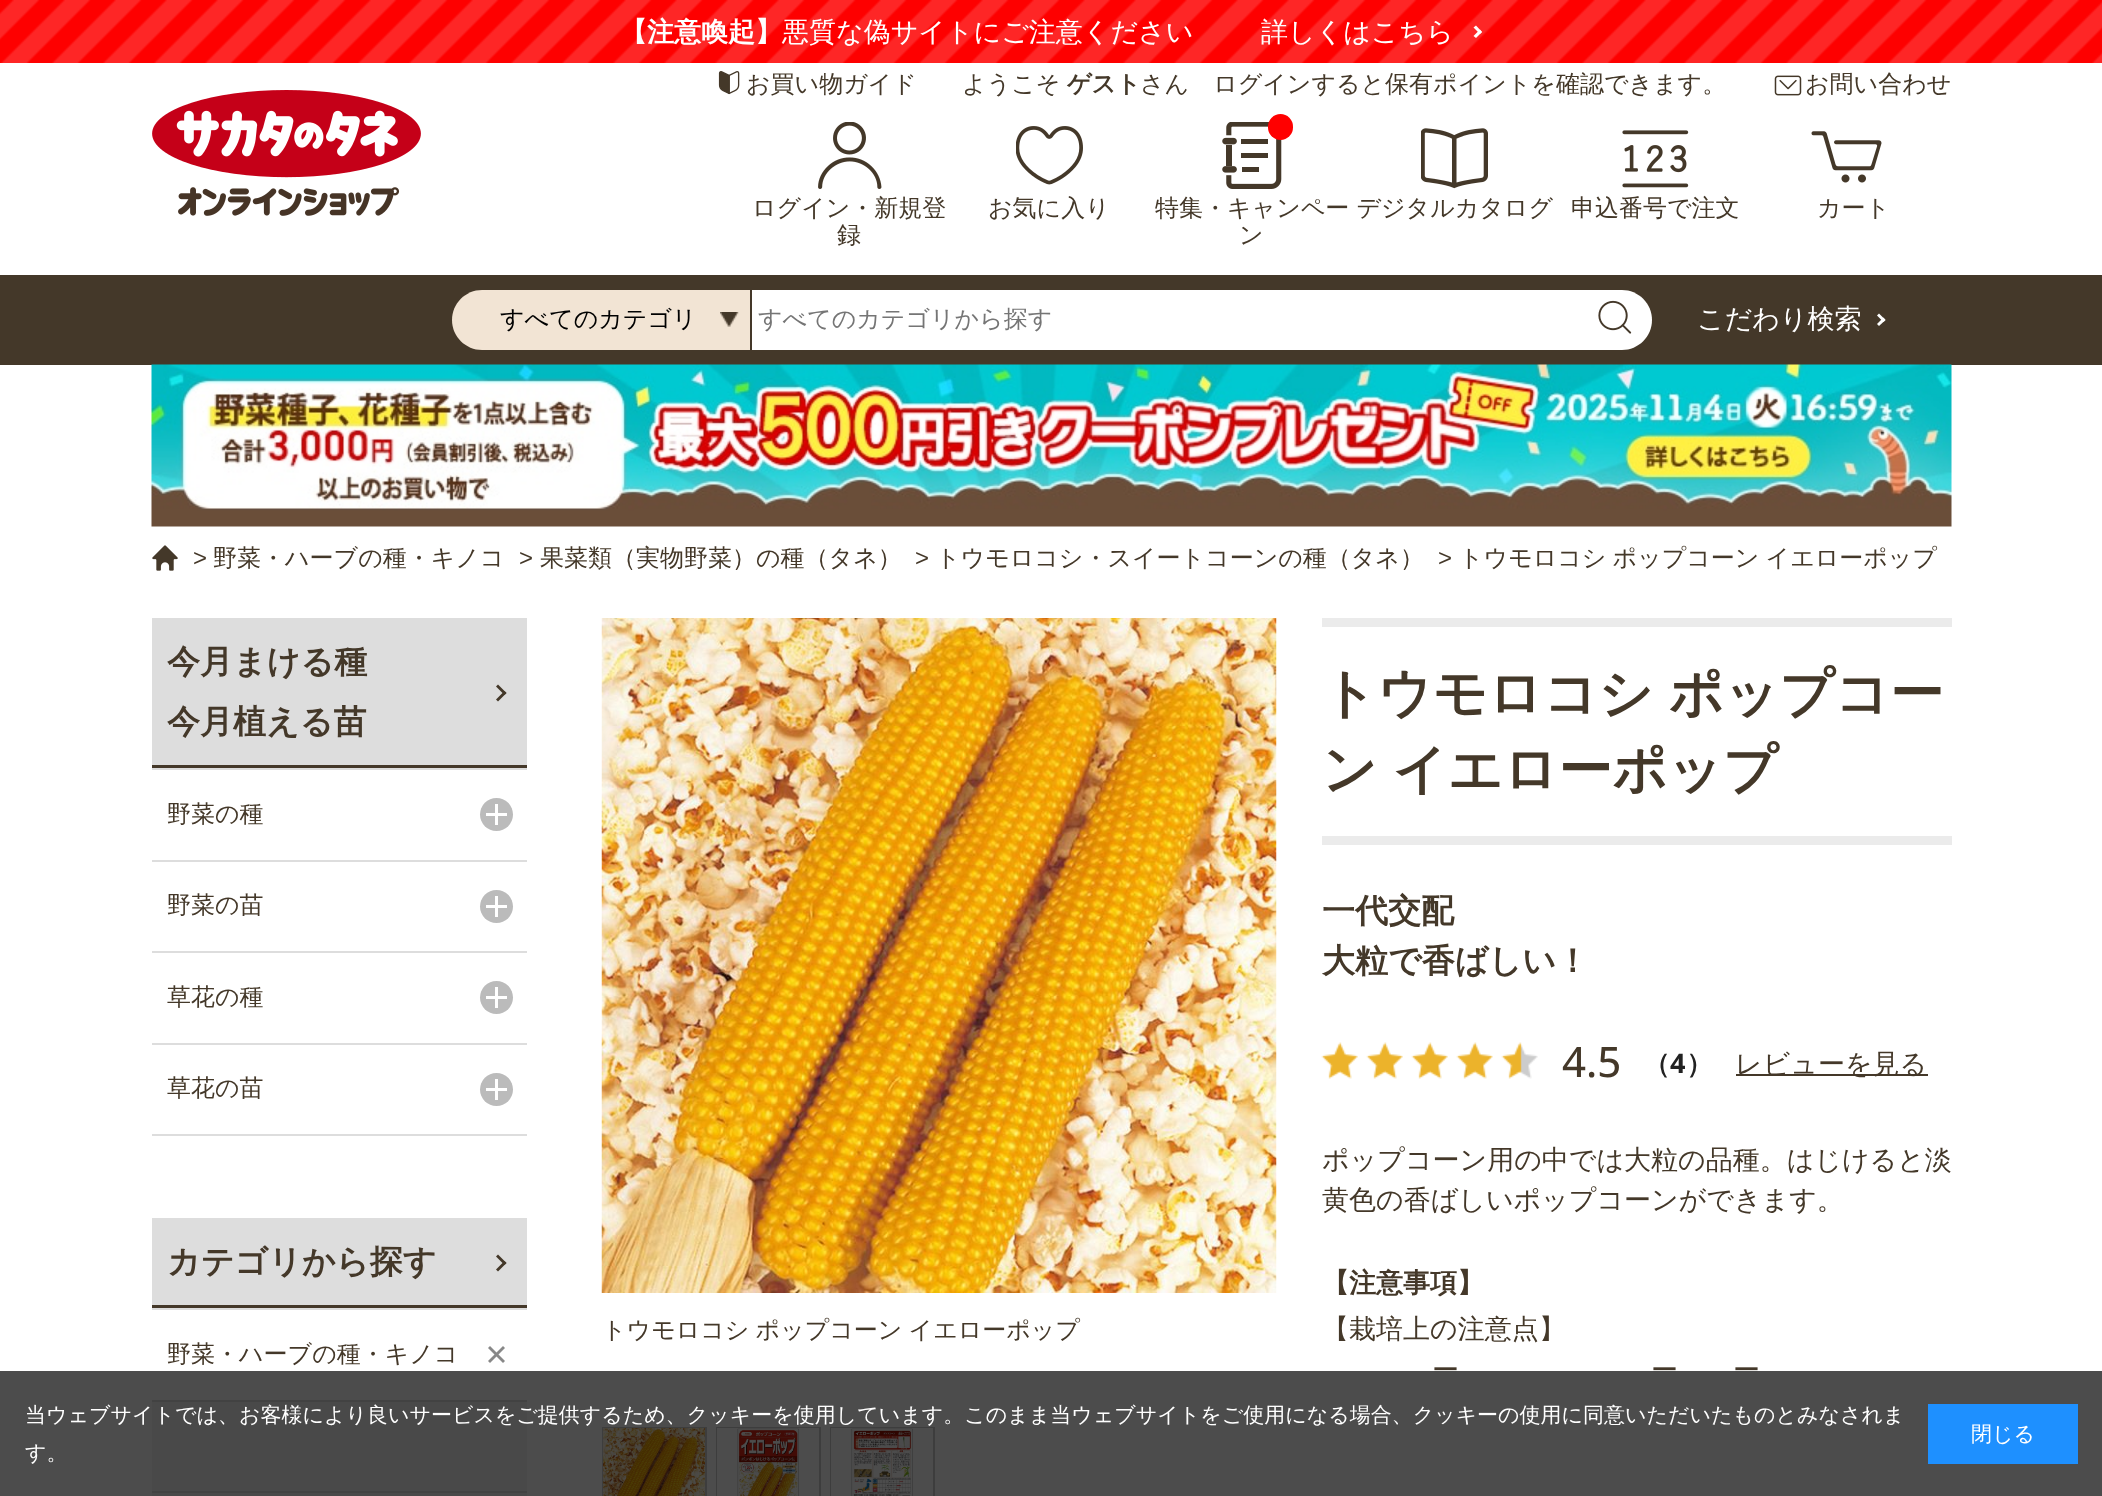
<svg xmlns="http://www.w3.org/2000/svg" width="2102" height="1496">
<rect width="100%" height="100%" fill="#fff"/>
<image x="0" y="0" width="2102" height="63" href="media/1.png"/>
<text x="620" y="41" style="font-family:WenQuanYi Zen Hei;font-size:27px;font-weight:bold;fill:#fff">【注意喚起】</text>
<text x="782" y="41" style="font-family:WenQuanYi Zen Hei;font-size:27px;font-weight:500;fill:#fff">悪質な偽サイトにご注意ください</text>
<text x="1261" y="41" style="font-family:WenQuanYi Zen Hei;font-size:27px;font-weight:500;fill:#fff">詳しくはこちら</text>
<path d="M1473.5 27.5l2.5-2l6 6.5l-2 2z" fill="#fff"/>
<path d="M1473.5 36l6.5-6.5l2 2.5l-6 6z" fill="#fff"/>
<image x="718" y="71" width="22" height="24" href="media/2.png"/>
<text x="746" y="92" style="font-family:WenQuanYi Zen Hei;font-size:24px;font-weight:500;fill:#443829">お買い物ガイド</text>
<text x="962" y="92" style="font-family:WenQuanYi Zen Hei;font-size:24px;font-weight:500;fill:#443829">ようこそ</text>
<text x="1067" y="92" style="font-family:WenQuanYi Zen Hei;font-size:24px;font-weight:bold;fill:#443829">ゲスト</text>
<text x="1140" y="92" style="font-family:WenQuanYi Zen Hei;font-size:24px;font-weight:500;fill:#443829">さん　ログインすると保有ポイントを確認できます。</text>
<image x="1774" y="75" width="28" height="21" href="media/3.png"/>
<text x="1805" y="92" style="font-family:WenQuanYi Zen Hei;font-size:24px;font-weight:500;fill:#443829">お問い合わせ</text>
<image x="152" y="90" width="269" height="126" href="media/4.png"/>
<image x="1421" y="128" width="67" height="61" href="media/5.png"/>
<image x="818" y="122" width="64" height="67" href="media/6.png"/>
<text x="752" y="216" style="font-family:WenQuanYi Zen Hei;font-size:24px;font-weight:500;fill:#443829">ログイン・新規登</text>
<text x="837" y="243" style="font-family:WenQuanYi Zen Hei;font-size:24px;font-weight:500;fill:#443829">録</text>
<image x="1016" y="126" width="67" height="59" href="media/7.png"/>
<text x="988" y="216" style="font-family:WenQuanYi Zen Hei;font-size:24px;font-weight:500;fill:#443829">お気に入り</text>
<image x="1222" y="122" width="60" height="67" href="media/8.png"/>
<rect x="1268" y="114" width="25" height="26" rx="12.5" fill="#f00"/>
<text x="1155" y="216" style="font-family:WenQuanYi Zen Hei;font-size:24px;font-weight:500;fill:#443829">特集・キャンペー デジタルカタログ</text>
<text x="1239" y="243" style="font-family:WenQuanYi Zen Hei;font-size:24px;font-weight:500;fill:#443829">ン</text>
<image x="1622" y="130" width="67" height="58" href="media/9.png"/>
<text x="1571" y="216" style="font-family:WenQuanYi Zen Hei;font-size:24px;font-weight:500;fill:#443829">申込番号で注文</text>
<image x="1811" y="131" width="71" height="52" href="media/10.png"/>
<text x="1817" y="216" style="font-family:WenQuanYi Zen Hei;font-size:24px;font-weight:500;fill:#443829">カート</text>
<rect y="275" width="2102" height="90" fill="#443829"/>
<path d="M482 290h270v60h-270c-16.5 0-30-13.5-30-30c0-16.5 13.5-30 30-30z" fill="#f2e4d4"/>
<image x="720" y="312" width="19" height="15" href="media/11.png"/>
<rect x="750" y="290" width="2" height="60" fill="#443829"/>
<text x="500" y="327" style="font-family:WenQuanYi Zen Hei;font-size:24px;font-weight:500;fill:#000">すべてのカテゴリ</text>
<rect x="752" y="290" width="825" height="60" fill="#fff"/>
<text x="758" y="327" style="font-family:WenQuanYi Zen Hei;font-size:24px;font-weight:500;fill:#757575">すべてのカテゴリから探す</text>
<path d="M1577 290h45c16.5 0 30 13.5 30 30c0 16.5-13.5 30-30 30h-45z" fill="#fff"/>
<image x="1598" y="300" width="34" height="34" href="media/12.png"/>
<text x="1697" y="328" style="font-family:WenQuanYi Zen Hei;font-size:27px;font-weight:500;fill:#fff">こだわり検索</text>
<path d="M1877 315.5l2-2l6.5 6.5l-2 2z" fill="#fff"/>
<path d="M1877 324l6.5-6.5l2 2.5l-6.5 6z" fill="#fff"/>
<image x="151" y="364" width="1801" height="163" href="media/13.png"/>
<image x="152" y="545" width="26" height="26" href="media/14.png"/>
<text x="193" y="566" style="font-family:Liberation Sans;font-size:24px;fill:#443829">&gt;</text>
<text x="213" y="566" style="font-family:WenQuanYi Zen Hei;font-size:24px;font-weight:500;fill:#443829">野菜・ハーブの種・キノコ</text>
<text x="519" y="566" style="font-family:Liberation Sans;font-size:24px;fill:#443829">&gt;</text>
<text x="540" y="566" style="font-family:WenQuanYi Zen Hei;font-size:24px;font-weight:500;fill:#443829">果菜類（実物野菜）の種（タネ）</text>
<text x="915" y="566" style="font-family:Liberation Sans;font-size:24px;fill:#443829">&gt;</text>
<text x="936" y="566" style="font-family:WenQuanYi Zen Hei;font-size:24px;font-weight:500;fill:#443829">トウモロコシ・スイートコーンの種（タネ）</text>
<text x="1438" y="566" style="font-family:Liberation Sans;font-size:24px;fill:#443829">&gt;</text>
<text x="1459" y="566" word-spacing="-1" style="font-family:WenQuanYi Zen Hei;font-size:24px;font-weight:500;fill:#443829">トウモロコシ ポップコーン イエローポップ</text>
<rect x="152" y="618" width="375" height="147" fill="#ddd"/>
<rect x="152" y="765" width="375" height="3" fill="#443829"/>
<text x="167" y="673" style="font-family:WenQuanYi Zen Hei;font-size:33px;font-weight:bold;fill:#443829">今月まける種</text>
<path d="M496 686.5l2-2l8.5 8.5l-2 2z" fill="#443829"/>
<path d="M496 699.5l8.5-8.5l2 2l-8.5 8.5z" fill="#443829"/>
<text x="167" y="733" style="font-family:WenQuanYi Zen Hei;font-size:33px;font-weight:bold;fill:#443829">今月植える苗</text>
<rect x="152" y="1134" width="375" height="2" fill="#ddd"/>
<rect x="152" y="768" width="375" height="2" fill="#ddd"/>
<text x="167" y="822" style="font-family:WenQuanYi Zen Hei;font-size:24px;font-weight:500;fill:#443829">野菜の種</text>
<circle cx="496.5" cy="814.5" r="16.5" fill="#bbb"/>
<rect x="495" y="804" width="3" height="21" fill="#fff"/>
<rect x="486" y="813" width="21" height="3" fill="#fff"/>
<rect x="152" y="860" width="375" height="2" fill="#ddd"/>
<text x="167" y="913" style="font-family:WenQuanYi Zen Hei;font-size:24px;font-weight:500;fill:#443829">野菜の苗</text>
<circle cx="496.5" cy="906.5" r="16.5" fill="#bbb"/>
<rect x="495" y="896" width="3" height="21" fill="#fff"/>
<rect x="486" y="905" width="21" height="3" fill="#fff"/>
<rect x="152" y="951" width="375" height="2" fill="#ddd"/>
<text x="167" y="1005" style="font-family:WenQuanYi Zen Hei;font-size:24px;font-weight:500;fill:#443829">草花の種</text>
<circle cx="496.5" cy="997.5" r="16.5" fill="#bbb"/>
<rect x="495" y="987" width="3" height="21" fill="#fff"/>
<rect x="486" y="996" width="21" height="3" fill="#fff"/>
<rect x="152" y="1043" width="375" height="2" fill="#ddd"/>
<text x="167" y="1096" style="font-family:WenQuanYi Zen Hei;font-size:24px;font-weight:500;fill:#443829">草花の苗</text>
<circle cx="496.5" cy="1089.5" r="16.5" fill="#bbb"/>
<rect x="495" y="1079" width="3" height="21" fill="#fff"/>
<rect x="486" y="1088" width="21" height="3" fill="#fff"/>
<rect x="152" y="1218" width="375" height="87" fill="#ddd"/>
<rect x="152" y="1305" width="375" height="3" fill="#443829"/>
<text x="167" y="1273" style="font-family:WenQuanYi Zen Hei;font-size:33px;font-weight:bold;fill:#443829">カテゴリから探す</text>
<path d="M496 1256.5l2-2l8.5 8.5l-2 2z" fill="#443829"/>
<path d="M496 1269.5l8.5-8.5l2 2l-8.5 8.5z" fill="#443829"/>
<rect x="152" y="1308" width="375" height="2" fill="#ddd"/>
<text x="167" y="1362" style="font-family:WenQuanYi Zen Hei;font-size:24px;font-weight:500;fill:#443829">野菜・ハーブの種・キノコ</text>
<path d="M488 1361l15-15l2 2l-15 15z" fill="#888"/>
<path d="M490 1346l15 15l-2 2l-15-15z" fill="#888"/>
<rect x="152" y="1402" width="375" height="94" fill="#f4f4f4"/>
<rect x="152" y="1400" width="375" height="2" fill="#ddd"/>
<rect x="152" y="1491" width="375" height="2" fill="#ddd"/>
<image x="601" y="618" width="676" height="675" href="media/15.png"/>
<text x="602" y="1338" word-spacing="-1" style="font-family:WenQuanYi Zen Hei;font-size:24px;font-weight:500;fill:#443829">トウモロコシ ポップコーン イエローポップ</text>
<rect x="603" y="1428" width="103" height="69" fill="none" stroke="#ccc" stroke-width="2"/>
<image x="603" y="1428" width="102" height="68" href="media/16.png"/>
<rect x="717" y="1428" width="103" height="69" fill="none" stroke="#ccc" stroke-width="2"/>
<image x="717" y="1428" width="102" height="68" href="media/17.png"/>
<rect x="831" y="1428" width="103" height="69" fill="none" stroke="#ccc" stroke-width="2"/>
<image x="831" y="1428" width="102" height="68" href="media/18.png"/>
<rect x="1322" y="618" width="630" height="9" fill="#ebebeb"/>
<rect x="1322" y="836" width="630" height="9" fill="#ebebeb"/>
<text x="1322" y="712" word-spacing="-1" style="font-family:WenQuanYi Zen Hei;font-size:54px;font-weight:bold;fill:#443829">トウモロコシ ポップコー</text>
<text x="1322" y="788" word-spacing="-1" style="font-family:WenQuanYi Zen Hei;font-size:54px;font-weight:bold;fill:#443829">ン イエローポップ</text>
<text x="1322" y="922" style="font-family:WenQuanYi Zen Hei;font-size:33px;font-weight:bold;fill:#443829">一代交配</text>
<text x="1322" y="972" style="font-family:WenQuanYi Zen Hei;font-size:33px;font-weight:bold;fill:#443829">大粒で香ばしい！</text>
<image x="1321" y="1042" width="217" height="37" href="media/19.png"/>
<text x="1562" y="1077" style="font-family:Open Sans;font-size:42px;font-weight:500;fill:#443829">4.5</text>
<text x="1643" y="1073" style="font-family:WenQuanYi Zen Hei;font-size:27px;font-weight:bold;fill:#222">（</text>
<text x="1670" y="1073" style="font-family:Open Sans;font-size:27px;font-weight:bold;fill:#222">4</text>
<text x="1686" y="1073" style="font-family:WenQuanYi Zen Hei;font-size:27px;font-weight:bold;fill:#222">）</text>
<rect x="1736" y="1074" width="192" height="2" fill="#443829"/>
<text x="1735" y="1073" style="font-family:WenQuanYi Zen Hei;font-size:27px;font-weight:500;fill:#443829">レビューを見る</text>
<text x="1322" y="1169" style="font-family:WenQuanYi Zen Hei;font-size:27px;font-weight:500;fill:#443829">ポップコーン用の中では大粒の品種。はじけると淡</text>
<text x="1322" y="1209" style="font-family:WenQuanYi Zen Hei;font-size:27px;font-weight:500;fill:#443829">黄色の香ばしいポップコーンができます。</text>
<text x="1322" y="1292" style="font-family:WenQuanYi Zen Hei;font-size:27px;font-weight:bold;fill:#443829">【注意事項】</text>
<text x="1322" y="1338" style="font-family:WenQuanYi Zen Hei;font-size:27px;font-weight:500;fill:#443829">【栽培上の注意点】</text>
<text x="1432" y="1379" style="font-family:WenQuanYi Zen Hei;font-size:27px;font-weight:500;fill:#443829">ー</text>
<text x="1651" y="1379" style="font-family:WenQuanYi Zen Hei;font-size:27px;font-weight:500;fill:#443829">ー</text>
<text x="1733" y="1379" style="font-family:WenQuanYi Zen Hei;font-size:27px;font-weight:500;fill:#443829">ー</text>
<rect y="1371" width="2102" height="125" fill="#000000b3"/>
<text x="25" y="1422" style="font-family:WenQuanYi Zen Hei;font-size:21px;font-weight:500;fill:#fff">当ウェブサイトでは、お客様により良いサービスをご提供するため、クッキーを使用しています。このまま当ウェブサイトをご使用になる場合、クッキーの使用に同意いただいたものとみなされま</text>
<text x="25" y="1460" style="font-family:WenQuanYi Zen Hei;font-size:21px;font-weight:500;fill:#fff">す。</text>
<rect x="1928" y="1404" width="150" height="60" fill="#1e90ff"/>
<text x="1971" y="1441" style="font-family:WenQuanYi Zen Hei;font-size:21px;font-weight:500;fill:#fff">閉じる</text>
</svg>
